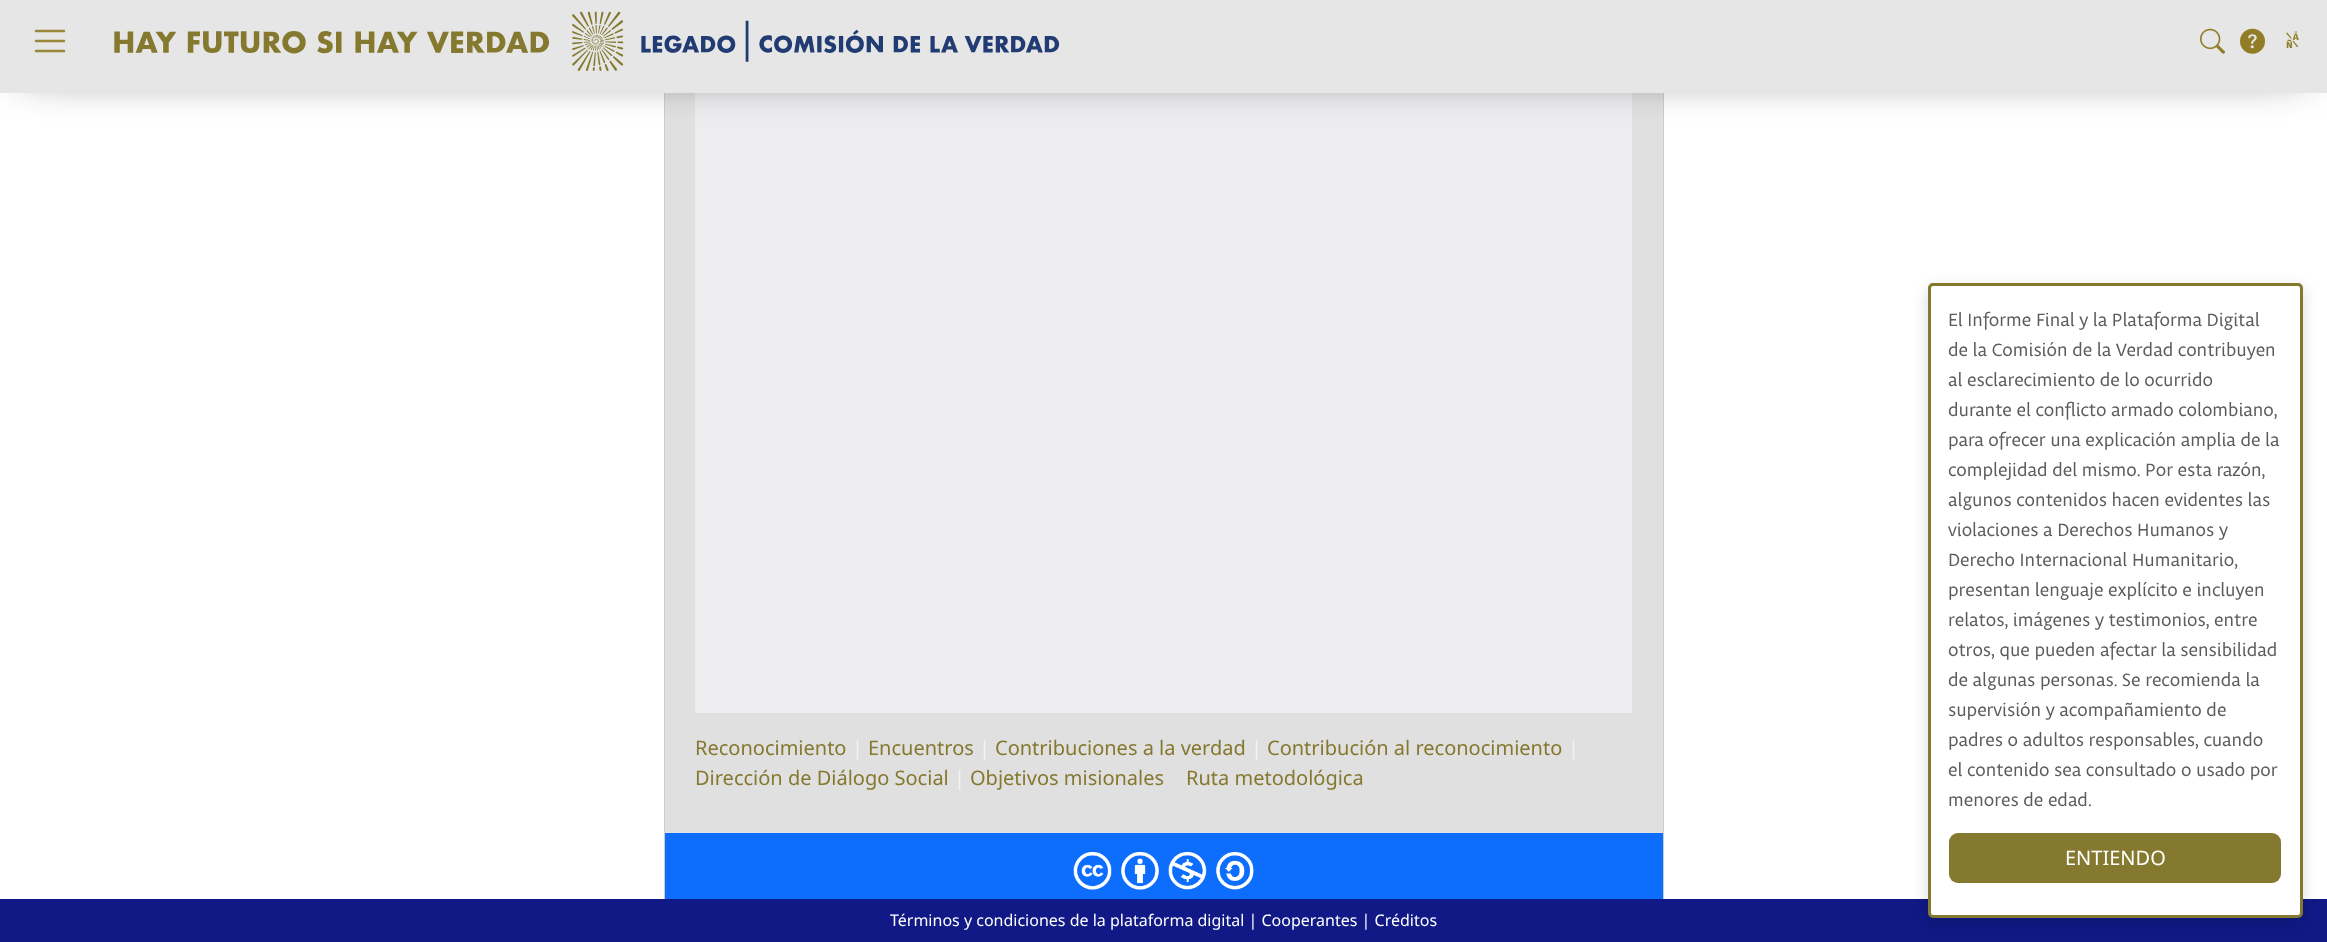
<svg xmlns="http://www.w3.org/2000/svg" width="2327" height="942">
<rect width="100%" height="100%" fill="#fff"/>
<rect x="665" y="93" width="998" height="740" fill="#e0e0e0"/>
<rect x="664.5" y="-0.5" width="999" height="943" fill="none" stroke="#ccc"/>
<rect x="695" y="93" width="937" height="620" fill="#ededf0"/>
<rect x="25" y="25" width="2278" height="38" fill="#000" filter="blur(25px)"/>
<rect width="2327" height="93" fill="#e6e6e6"/>
<path d="M36 31h28m-28 10h28m-28 10h28" fill="none" stroke="#9a8839" stroke-width="2.5" stroke-linecap="round"/>
<image x="114" y="11" width="946" height="60" href="media/1.png"/>
<image x="2200" y="28" width="25" height="26" href="media/2.png"/>
<image x="2240" y="28" width="25" height="26" href="media/3.png"/>
<image x="2286" y="31" width="13" height="18" href="media/4.png"/>
<rect x="695" y="721" width="938" height="1" fill="#dee2e6"/>
<text x="695" y="755" style="font-family:Noto Sans;font-size:20px;fill:#85782f">Reconocimiento</text>
<text x="852" y="755" style="font-family:Noto Sans;font-size:20px;fill:#f2f2f2">|</text>
<text x="868" y="755" style="font-family:Noto Sans;font-size:20px;fill:#85782f">Encuentros</text>
<text x="979" y="755" style="font-family:Noto Sans;font-size:20px;fill:#f2f2f2">|</text>
<text x="995" y="755" style="font-family:Noto Sans;font-size:20px;fill:#85782f">Contribuciones a la verdad</text>
<text x="1251" y="755" style="font-family:Noto Sans;font-size:20px;fill:#f2f2f2">|</text>
<text x="1267" y="755" style="font-family:Noto Sans;font-size:20px;fill:#85782f">Contribución al reconocimiento</text>
<text x="1568" y="755" style="font-family:Noto Sans;font-size:20px;fill:#f2f2f2">|</text>
<text x="695" y="785" style="font-family:Noto Sans;font-size:20px;fill:#85782f">Dirección de Diálogo Social</text>
<text x="954" y="785" style="font-family:Noto Sans;font-size:20px;fill:#f2f2f2">|</text>
<text x="970" y="785" style="font-family:Noto Sans;font-size:20px;fill:#85782f">Objetivos misionales</text>
<text x="1186" y="785" style="font-family:Noto Sans;font-size:20px;fill:#85782f">Ruta metodológica</text>
<rect x="665" y="833" width="998" height="66" fill="#0d6efd"/>
<image x="1073" y="852" width="39" height="38" href="media/5.png"/>
<image x="1121" y="852" width="38" height="38" href="media/6.png"/>
<image x="1168" y="852" width="39" height="38" href="media/7.png"/>
<image x="1216" y="852" width="38" height="38" href="media/8.png"/>
<rect y="899" width="2327" height="43" fill="#101986"/>
<text x="890" y="926" style="font-family:Noto Sans;font-size:16px;fill:#fff">Términos y condiciones de la plataforma digital | Cooperantes | Créditos</text>
<rect x="1928" y="288" width="375" height="635" rx="5" fill="#00000026" filter="blur(7.5px)"/>
<rect x="1929.5" y="284.5" width="372" height="632" rx="3.5" fill="#fff" stroke="#85782f" stroke-width="3"/>
<text x="1948" y="326" style="font-family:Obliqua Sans;font-size:18.75px;fill:#5b5b5b">El Informe Final y la Plataforma Digital</text>
<text x="1948" y="356" style="font-family:Obliqua Sans;font-size:18.75px;fill:#5b5b5b">de la Comisión de la Verdad contribuyen</text>
<text x="1948" y="386" style="font-family:Obliqua Sans;font-size:18.75px;fill:#5b5b5b">al esclarecimiento de lo ocurrido</text>
<text x="1948" y="416" style="font-family:Obliqua Sans;font-size:18.75px;fill:#5b5b5b">durante el conflicto armado colombiano,</text>
<text x="1948" y="446" style="font-family:Obliqua Sans;font-size:18.75px;fill:#5b5b5b">para ofrecer una explicación amplia de la</text>
<text x="1948" y="476" style="font-family:Obliqua Sans;font-size:18.75px;fill:#5b5b5b">complejidad del mismo. Por esta razón,</text>
<text x="1948" y="506" style="font-family:Obliqua Sans;font-size:18.75px;fill:#5b5b5b">algunos contenidos hacen evidentes las</text>
<text x="1948" y="536" style="font-family:Obliqua Sans;font-size:18.75px;fill:#5b5b5b">violaciones a Derechos Humanos y</text>
<text x="1948" y="566" style="font-family:Obliqua Sans;font-size:18.75px;fill:#5b5b5b">Derecho Internacional Humanitario,</text>
<text x="1948" y="596" style="font-family:Obliqua Sans;font-size:18.75px;fill:#5b5b5b">presentan lenguaje explícito e incluyen</text>
<text x="1948" y="626" style="font-family:Obliqua Sans;font-size:18.75px;fill:#5b5b5b">relatos, imágenes y testimonios, entre</text>
<text x="1948" y="656" style="font-family:Obliqua Sans;font-size:18.75px;fill:#5b5b5b">otros, que pueden afectar la sensibilidad</text>
<text x="1948" y="686" style="font-family:Obliqua Sans;font-size:18.75px;fill:#5b5b5b">de algunas personas. Se recomienda la</text>
<text x="1948" y="716" style="font-family:Obliqua Sans;font-size:18.75px;fill:#5b5b5b">supervisión y acompañamiento de</text>
<text x="1948" y="746" style="font-family:Obliqua Sans;font-size:18.75px;fill:#5b5b5b">padres o adultos responsables, cuando</text>
<text x="1948" y="776" style="font-family:Obliqua Sans;font-size:18.75px;fill:#5b5b5b">el contenido sea consultado o usado por</text>
<text x="1948" y="806" style="font-family:Obliqua Sans;font-size:18.75px;fill:#5b5b5b">menores de edad.</text>
<rect x="1949" y="833" width="332" height="50" rx="9" fill="#85782f"/>
<text x="2065" y="865" style="font-family:Noto Sans;font-size:20px;fill:#fff">ENTIENDO</text>
</svg>
